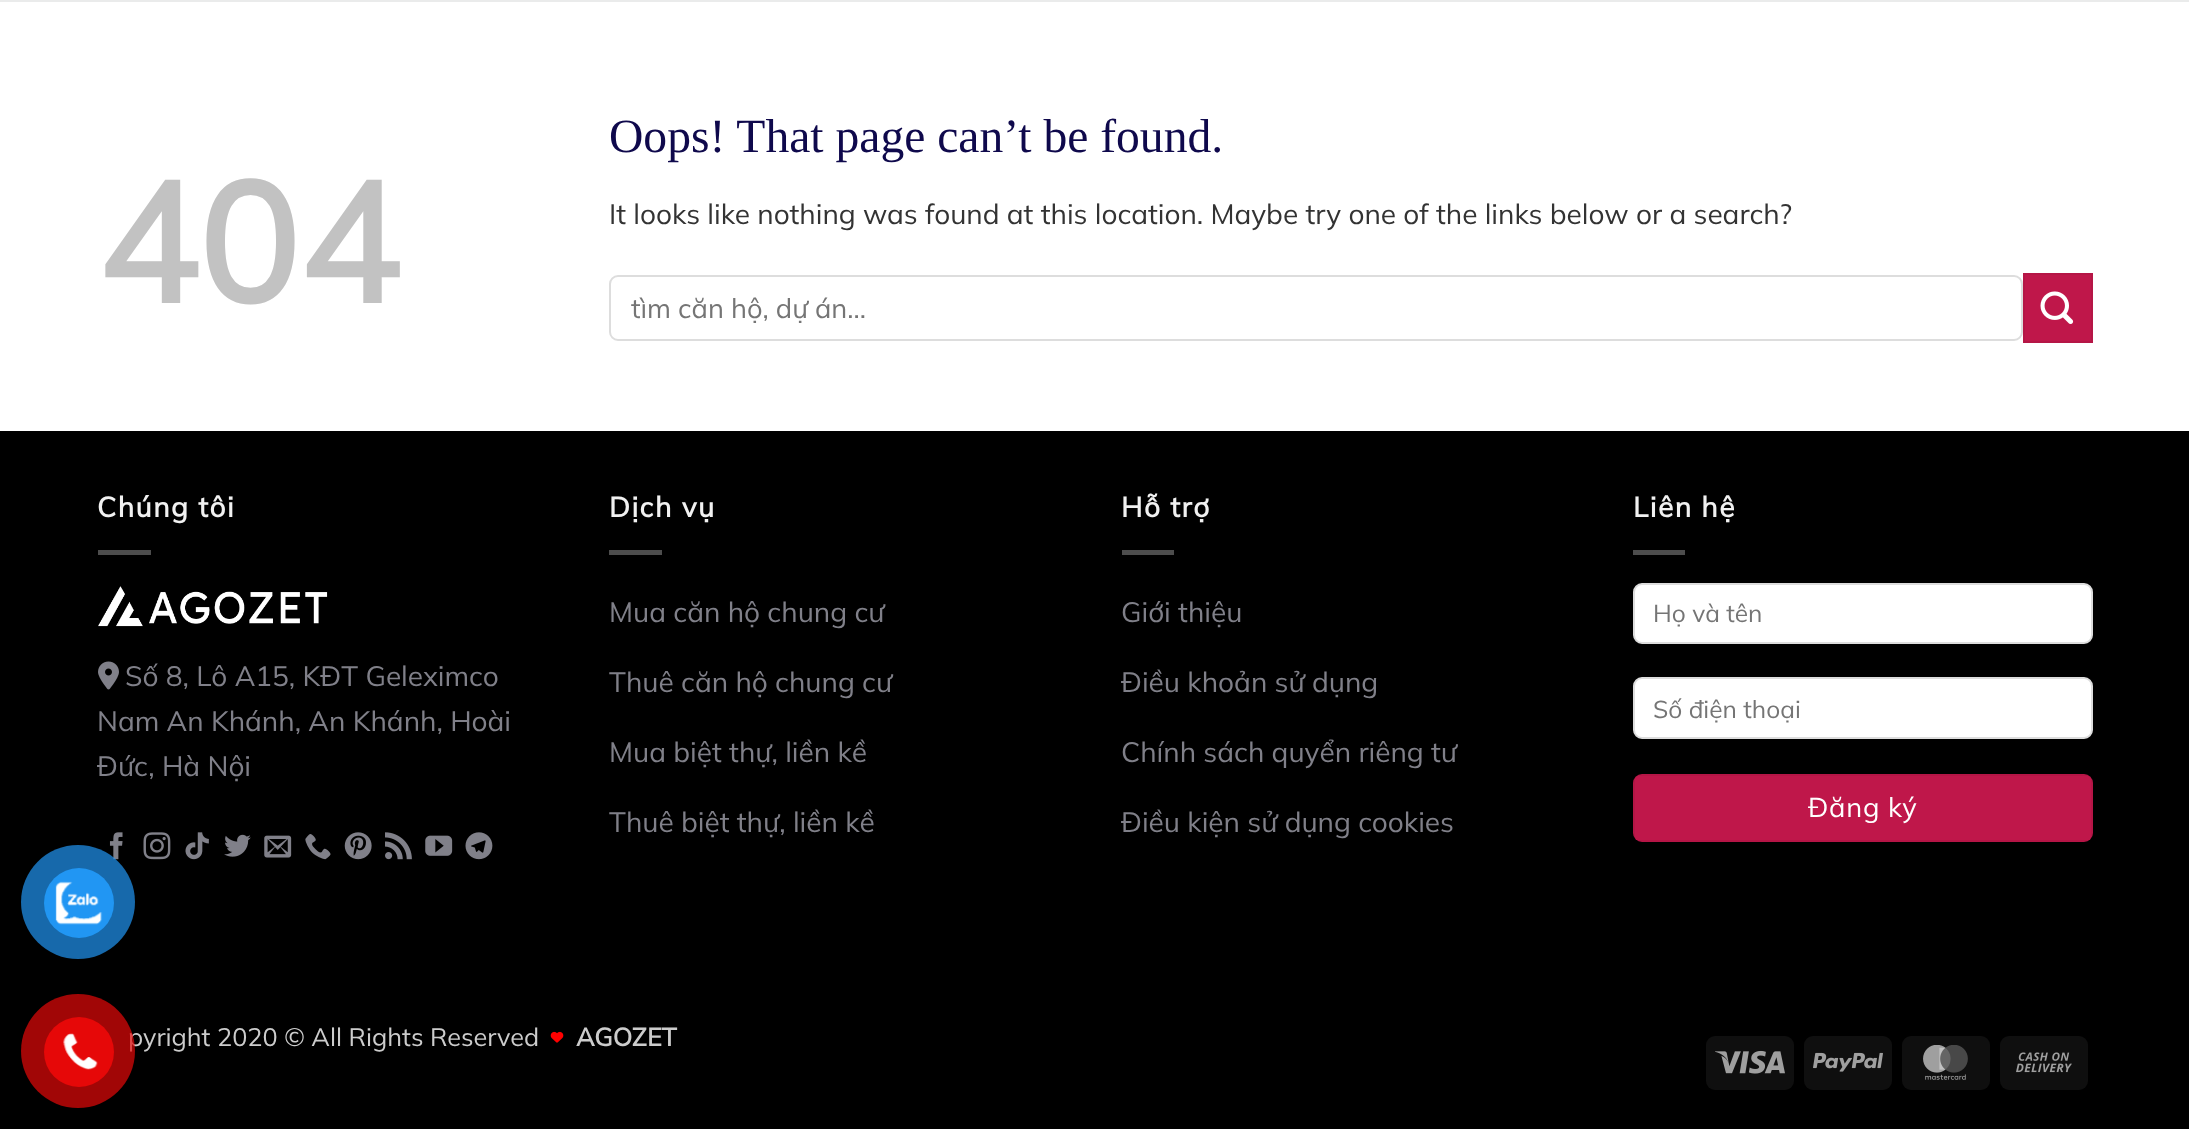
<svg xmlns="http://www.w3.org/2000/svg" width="2189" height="1129">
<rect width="100%" height="100%" fill="#fff"/>
<rect y="431" width="2189" height="698" fill="#000"/>
<image x="109" y="832" width="14" height="28" href="media/6.png"/>
<circle cx="78" cy="902" r="57" fill="#2196f3b3"/>
<circle cx="79" cy="903" r="35" fill="#2196f3"/>
<image x="55" y="881" width="48" height="44" href="media/1.png"/>
<text x="128" y="1046" style="font-family:Mulish;font-size:25.25px;font-weight:200;fill:#ccc">pyright 2020 © All Rights Reserved</text>
<circle cx="78" cy="1051" r="57" fill="#e60808b3"/>
<circle cx="79" cy="1052" r="35" fill="#e60808"/>
<image x="63" y="1033" width="35" height="37" href="media/2.png"/>
<rect width="2189" height="2" fill="#eaebeb"/>
<text x="97" y="303" style="font-family:Mulish;font-size:168px;font-weight:bold;fill:#c2c2c2">404</text>
<text x="609" y="152" style="font-family:Liberation Serif;font-size:47.6px;fill:#0f094c">Oops! That page can’t be found.</text>
<text x="609" y="224" style="font-family:Mulish;font-size:28px;font-weight:200;fill:#333">It looks like nothing was found at this location. Maybe try one of the links below or a search?</text>
<rect x="610" y="276" width="1412" height="64" rx="8" fill="none" stroke="#ddd" stroke-width="2"/>
<text x="631" y="318" style="font-family:Mulish;font-size:27.25px;font-weight:200;fill:#757575">tìm căn hộ, dự án...</text>
<rect x="2024" y="274" width="68" height="68" fill="#bf174a" stroke="#b51646" stroke-width="2"/>
<image x="2040" y="291" width="34" height="33" href="media/3.png"/>
<text x="97" y="517" style="font-family:Mulish;font-size:28px;font-weight:bold;letter-spacing:1.5px;fill:#f1f1f1">Chúng tôi</text>
<rect x="98" y="550" width="53" height="5" fill="#4d4d4d"/>
<image x="98" y="586" width="230" height="41" href="media/4.png"/>
<image x="98" y="661" width="21" height="29" href="media/5.png"/>
<text x="125" y="686" style="font-family:Mulish;font-size:28px;font-weight:200;fill:#808089">Số 8, Lô A15, KĐT Geleximco</text>
<text x="97" y="731" style="font-family:Mulish;font-size:28px;font-weight:200;fill:#808089">Nam An Khánh, An Khánh, Hoài</text>
<text x="97" y="776" style="font-family:Mulish;font-size:28px;font-weight:200;fill:#808089">Đức, Hà Nội</text>
<image x="143" y="832" width="28" height="28" href="media/7.png"/>
<image x="185" y="832" width="24" height="28" href="media/8.png"/>
<image x="224" y="834" width="27" height="23" href="media/9.png"/>
<image x="264" y="835" width="28" height="23" href="media/10.png"/>
<image x="305" y="834" width="26" height="26" href="media/11.png"/>
<image x="344" y="832" width="28" height="28" href="media/12.png"/>
<image x="385" y="832" width="27" height="28" href="media/13.png"/>
<image x="425" y="835" width="28" height="21" href="media/14.png"/>
<image x="465" y="832" width="28" height="28" href="media/15.png"/>
<text x="609" y="517" style="font-family:Mulish;font-size:28px;font-weight:bold;letter-spacing:1.5px;fill:#f1f1f1">Dịch vụ</text>
<rect x="609" y="550" width="53" height="5" fill="#4d4d4d"/>
<text x="609" y="622" style="font-family:Mulish;font-size:28px;font-weight:200;fill:#808089">Mua căn hộ chung cư</text>
<text x="609" y="692" style="font-family:Mulish;font-size:28px;font-weight:200;fill:#808089">Thuê căn hộ chung cư</text>
<text x="609" y="762" style="font-family:Mulish;font-size:28px;font-weight:200;fill:#808089">Mua biệt thự, liền kề</text>
<text x="609" y="832" style="font-family:Mulish;font-size:28px;font-weight:200;fill:#808089">Thuê biệt thự, liền kề</text>
<text x="1121" y="517" style="font-family:Mulish;font-size:28px;font-weight:bold;letter-spacing:1.5px;fill:#f1f1f1">Hỗ trợ</text>
<rect x="1122" y="550" width="52" height="5" fill="#4d4d4d"/>
<text x="1121" y="622" style="font-family:Mulish;font-size:28px;font-weight:200;fill:#808089">Giới thiệu</text>
<text x="1121" y="692" style="font-family:Mulish;font-size:28px;font-weight:200;fill:#808089">Điều khoản sử dụng</text>
<text x="1121" y="762" style="font-family:Mulish;font-size:28px;font-weight:200;fill:#808089">Chính sách quyển riêng tư</text>
<text x="1121" y="832" style="font-family:Mulish;font-size:28px;font-weight:200;fill:#808089">Điều kiện sử dụng cookies</text>
<text x="1633" y="517" style="font-family:Mulish;font-size:28px;font-weight:bold;letter-spacing:1.5px;fill:#f1f1f1">Liên hệ</text>
<rect x="1633" y="550" width="52" height="5" fill="#4d4d4d"/>
<rect x="1634" y="584" width="458" height="59" rx="8" fill="#fff" stroke="#ddd" stroke-width="2"/>
<text x="1653" y="622" style="font-family:Mulish;font-size:24.5px;font-weight:200;fill:#757575">Họ và tên</text>
<rect x="1634" y="678" width="458" height="60" rx="8" fill="#fff" stroke="#ddd" stroke-width="2"/>
<text x="1653" y="718" style="font-family:Mulish;font-size:24.5px;font-weight:200;fill:#757575">Số điện thoại</text>
<rect x="1633" y="774" width="460" height="68" rx="9" fill="#bf174a"/>
<rect x="1634" y="775" width="458" height="66" fill="none" stroke="#0000000d" stroke-width="2"/>
<text x="1808" y="817" style="font-family:Mulish;font-size:27.25px;font-weight:200;letter-spacing:0.75px;fill:#fff">Đăng ký</text>
<image x="550" y="1031" width="14" height="12" href="media/16.png"/>
<text x="576" y="1046" style="font-family:Mulish;font-size:25.25px;font-weight:bold;fill:#ccc">AGOZET</text>
<rect x="1706" y="1036" width="88" height="54" rx="9" fill="#0f0f0f"/>
<image x="1715" y="1050" width="70" height="24" href="media/17.png"/>
<rect x="1804" y="1036" width="88" height="54" rx="9" fill="#0f0f0f"/>
<image x="1813" y="1052" width="70" height="20" href="media/18.png"/>
<rect x="1902" y="1036" width="88" height="54" rx="9" fill="#0f0f0f"/>
<image x="1923" y="1045" width="45" height="35" href="media/19.png"/>
<rect x="2000" y="1036" width="88" height="54" rx="9" fill="#0f0f0f"/>
<image x="2016" y="1052" width="56" height="21" href="media/20.png"/>
</svg>
